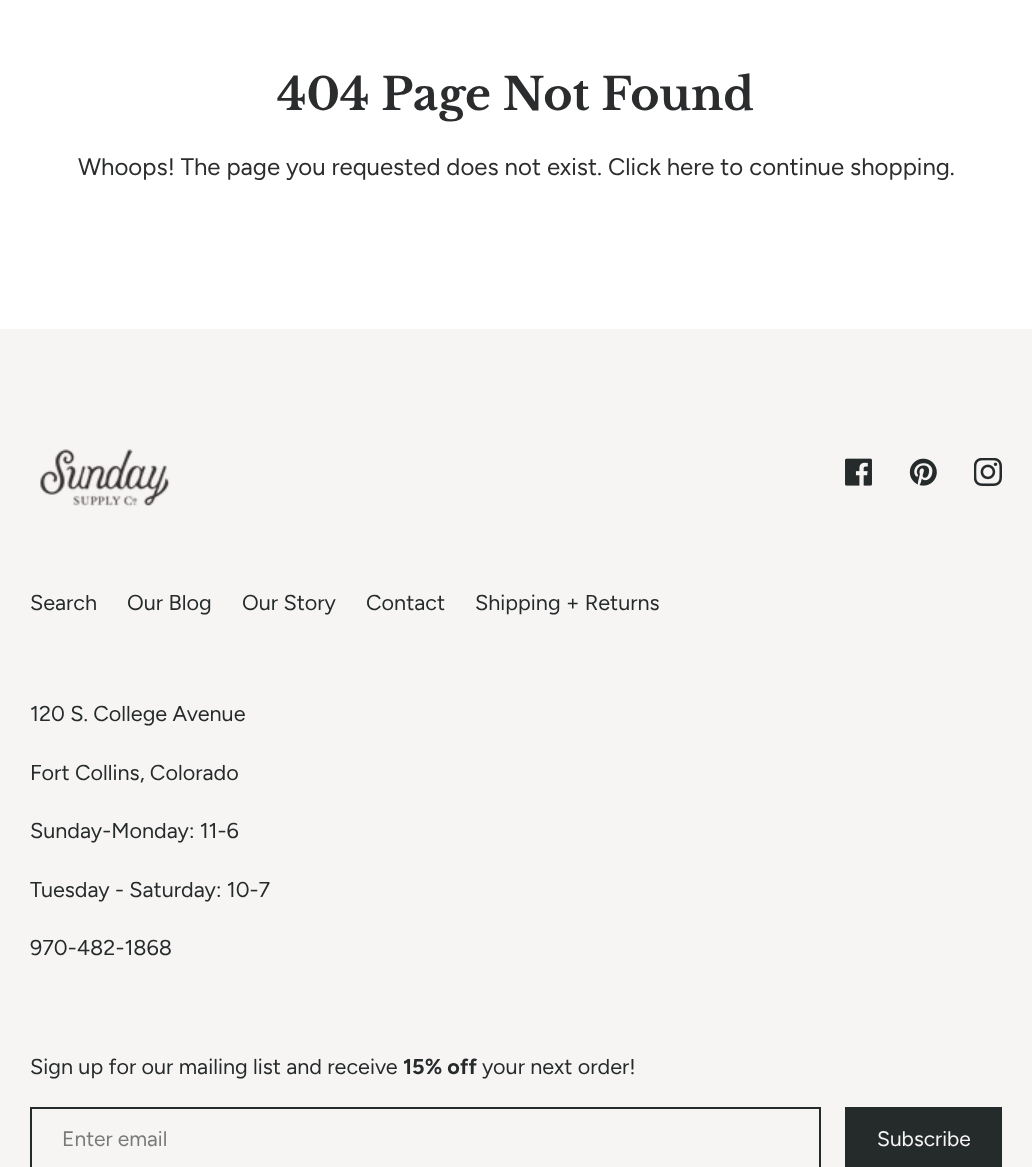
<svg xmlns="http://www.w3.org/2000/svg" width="1032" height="1167">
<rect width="100%" height="100%" fill="#fff"/>
<text x="277" y="110" style="font-family:Libre Baskerville;font-size:44.4px;font-weight:bold;fill:#2b2c2d">404 Page Not Found</text>
<text x="78" y="175" style="font-family:Figtree;font-size:24px;font-weight:300;fill:#2b2c2d">Whoops! The page you requested does not exist. Click here to continue shopping.</text>
<rect y="329" width="1032" height="838" fill="#f7f5f4"/>
<image x="40" y="449" width="130" height="58" href="media/1.png"/>
<image x="845" y="458" width="27" height="28" href="media/2.png"/>
<image x="909" y="458" width="28" height="28" href="media/3.png"/>
<image x="974" y="458" width="28" height="29" href="media/4.png"/>
<text x="30" y="610" style="font-family:Figtree;font-size:21.6px;font-weight:300;fill:#252a2b">Search</text>
<text x="127" y="610" style="font-family:Figtree;font-size:21.6px;font-weight:300;fill:#252a2b">Our Blog</text>
<text x="242" y="610" style="font-family:Figtree;font-size:21.6px;font-weight:300;fill:#252a2b">Our Story</text>
<text x="366" y="610" style="font-family:Figtree;font-size:21.6px;font-weight:300;fill:#252a2b">Contact</text>
<text x="475" y="610" style="font-family:Figtree;font-size:21.6px;font-weight:300;fill:#252a2b">Shipping + Returns</text>
<text x="30" y="721" style="font-family:Figtree;font-size:21.6px;font-weight:300;fill:#252a2b">120 S. College Avenue</text>
<text x="30" y="780" style="font-family:Figtree;font-size:21.6px;font-weight:300;fill:#252a2b">Fort Collins, Colorado</text>
<text x="30" y="838" style="font-family:Figtree;font-size:21.6px;font-weight:300;fill:#252a2b">Sunday-Monday: 11-6</text>
<text x="30" y="897" style="font-family:Figtree;font-size:21.6px;font-weight:300;fill:#252a2b">Tuesday - Saturday: 10-7</text>
<text x="30" y="955" style="font-family:Figtree;font-size:21.6px;font-weight:300;fill:#252a2b">970-482-1868</text>
<text x="30" y="1074" style="font-family:Figtree;font-size:21.6px;font-weight:300;fill:#252a2b">Sign up for our mailing list and receive</text>
<text x="403" y="1074" style="font-family:Figtree;font-size:21.6px;font-weight:bold;fill:#252a2b">15% off</text>
<text x="482" y="1074" style="font-family:Figtree;font-size:21.6px;font-weight:300;fill:#252a2b">your next order!</text>
<rect x="31" y="1108" width="789" height="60" fill="none" stroke="#252a2b" stroke-width="2"/>
<text x="62" y="1146" style="font-family:Figtree;font-size:21px;font-weight:300;fill:#797b7b">Enter email</text>
<rect x="845" y="1107" width="157" height="60" fill="#252a2b"/>
<text x="877" y="1146" style="font-family:Figtree;font-size:21px;font-weight:300;fill:#f7f5f4">Subscribe</text>
</svg>
